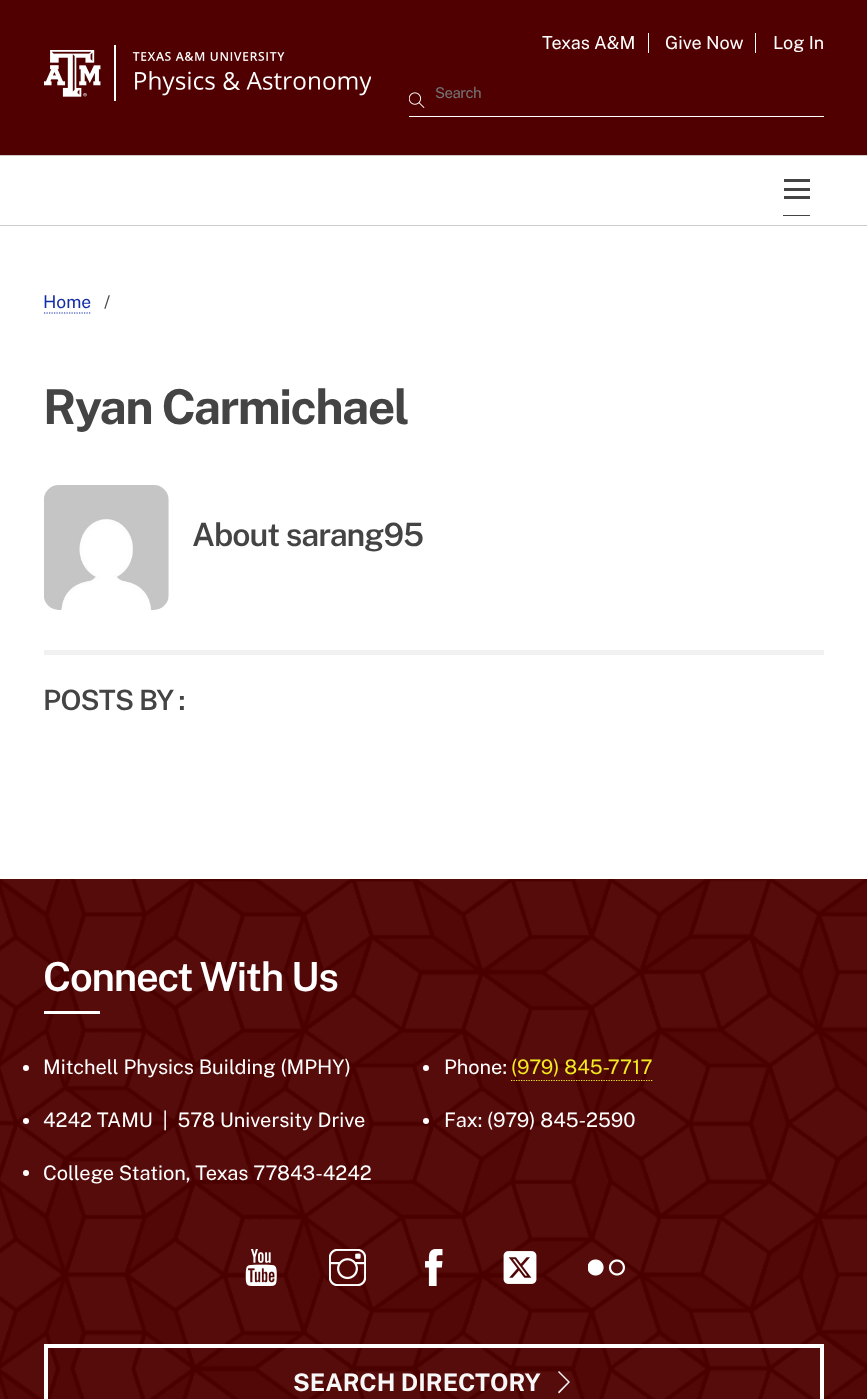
<svg xmlns="http://www.w3.org/2000/svg" width="867" height="1399">
<rect width="100%" height="100%" fill="#fff"/>
<rect width="867" height="155" fill="#500000"/>
<rect y="155" width="867" height="1" fill="#ccc"/>
<image x="44" y="45" width="327" height="56" href="media/1.png"/>
<rect x="648" y="33" width="1" height="20" fill="#fff"/>
<text x="542" y="49" style="font-family:Public Sans;font-size:18px;fill:#fff">Texas A&amp;M</text>
<rect x="755" y="33" width="1" height="20" fill="#fff"/>
<text x="665" y="49" style="font-family:Public Sans;font-size:18px;fill:#fff">Give Now</text>
<text x="773" y="49" style="font-family:Public Sans;font-size:18px;fill:#fff">Log In</text>
<rect x="409" y="116" width="415" height="1" fill="#fff"/>
<image x="409" y="92" width="16" height="16" href="media/2.png"/>
<text x="435" y="98" style="font-family:Public Sans;font-size:15px;letter-spacing:-0.5px;fill:#757575">Search</text>
<rect y="225" width="867" height="1" fill="#ccc"/>
<rect x="783" y="215" width="27" height="1" fill="#444"/>
<rect x="784" y="196" width="26" height="3" fill="#444"/>
<rect x="784" y="179" width="26" height="3" fill="#444"/>
<rect x="784" y="188" width="26" height="3" fill="#444"/>
<text x="43" y="308" style="font-family:Public Sans;font-size:17.5px;fill:#132da5">Home</text>
<path d="M44 313h47" fill="none" stroke="#132da5" stroke-width="1.2" stroke-dasharray="1.25 1.25"/>
<text x="104" y="308" style="font-family:Public Sans;font-size:17.5px;fill:#444">/</text>
<text x="43" y="424" style="font-family:Public Sans;font-size:48px;font-weight:bold;letter-spacing:-1.5px;fill:#444">Ryan Carmichael</text>
<image x="44" y="485" width="125" height="125" href="media/3.png"/>
<text x="192" y="546" style="font-family:Public Sans;font-size:32px;font-weight:600;letter-spacing:-1px;fill:#444">About sarang95</text>
<rect x="44" y="650" width="780" height="5" fill="#f1f1f1"/>
<text x="43" y="710" style="font-family:Public Sans;font-size:28px;font-weight:600;letter-spacing:-0.75px;fill:#444">POSTS BY :</text>
<rect y="879" width="867" height="520" fill="#500000"/>
<image x="0" y="879" width="867" height="520" href="media/4.png"/>
<text x="43" y="991" style="font-family:Public Sans;font-size:40px;font-weight:600;letter-spacing:-1.25px;fill:#fff">Connect With Us</text>
<rect x="44" y="1011" width="56" height="3" fill="#fff"/>
<circle cx="26" cy="1068" r="3" fill="#fff"/>
<text x="43" y="1074" style="font-family:Public Sans;font-size:20px;fill:#fff">Mitchell Physics Building (MPHY)</text>
<circle cx="426" cy="1068" r="3" fill="#fff"/>
<text x="444" y="1074" style="font-family:Public Sans;font-size:20px;fill:#fff">Phone:</text>
<text x="511" y="1074" style="font-family:Public Sans;font-size:20px;fill:#f2eb22">(979) 845-7717</text>
<path d="M511 1080.5h141.5" fill="none" stroke="#f2eb22" stroke-width="1.2" stroke-dasharray="1.25 1.25"/>
<circle cx="26" cy="1121" r="3" fill="#fff"/>
<text x="43" y="1127" style="font-family:Public Sans;font-size:20px;fill:#fff" xml:space="preserve">4242 TAMU  |  578 University Drive</text>
<circle cx="426" cy="1121" r="3" fill="#fff"/>
<text x="444" y="1127" style="font-family:Public Sans;font-size:20px;fill:#fff">Fax: (979) 845-2590</text>
<circle cx="26" cy="1173" r="3" fill="#fff"/>
<text x="43" y="1180" style="font-family:Public Sans;font-size:20px;fill:#fff">College Station, Texas 77843-4242</text>
<image x="245" y="1249" width="32" height="37" href="media/5.png"/>
<image x="329" y="1249" width="37" height="37" href="media/6.png"/>
<image x="425" y="1249" width="18" height="37" href="media/7.png"/>
<image x="503" y="1251" width="34" height="33" href="media/8.png"/>
<image x="588" y="1259" width="37" height="17" href="media/9.png"/>
<rect x="46" y="1346" width="776" height="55" fill="none" stroke="#fff" stroke-width="4"/>
<text x="293" y="1391" style="font-family:Public Sans;font-size:24.25px;font-weight:bold;fill:#f7f7f7">SEARCH DIRECTORY</text>
<path d="M570 1382l-11-11l-1 1l10 10l-10 10l1 1.5z" fill="#f7f7f7"/>
</svg>
